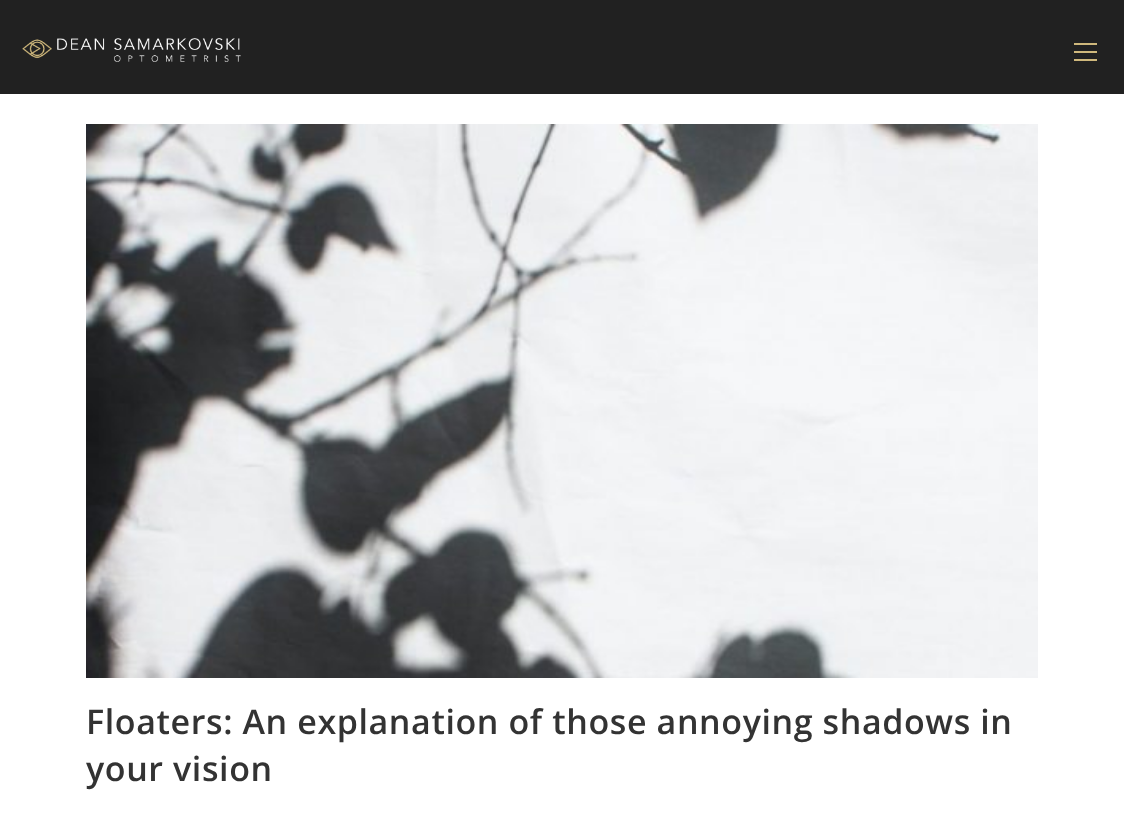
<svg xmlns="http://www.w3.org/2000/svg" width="1124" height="814">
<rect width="100%" height="100%" fill="#fff"/>
<rect width="1124" height="94" fill="#212121"/>
<image x="22" y="38" width="219" height="24" href="media/1.png"/>
<rect x="1074" y="51" width="23" height="2" fill="#cfb87c"/>
<rect x="1074" y="43" width="23" height="2" fill="#cfb87c"/>
<rect x="1074" y="59" width="23" height="2" fill="#cfb87c"/>
<image x="86" y="124" width="952" height="554" href="media/2.png"/>
<text x="86" y="734" style="font-family:Open Sans;font-size:34px;font-weight:600;letter-spacing:0.6px;fill:#333">Floaters: An explanation of those annoying shadows in</text>
<text x="86" y="781" style="font-family:Open Sans;font-size:34px;font-weight:600;letter-spacing:0.6px;fill:#333">your vision</text>
</svg>
